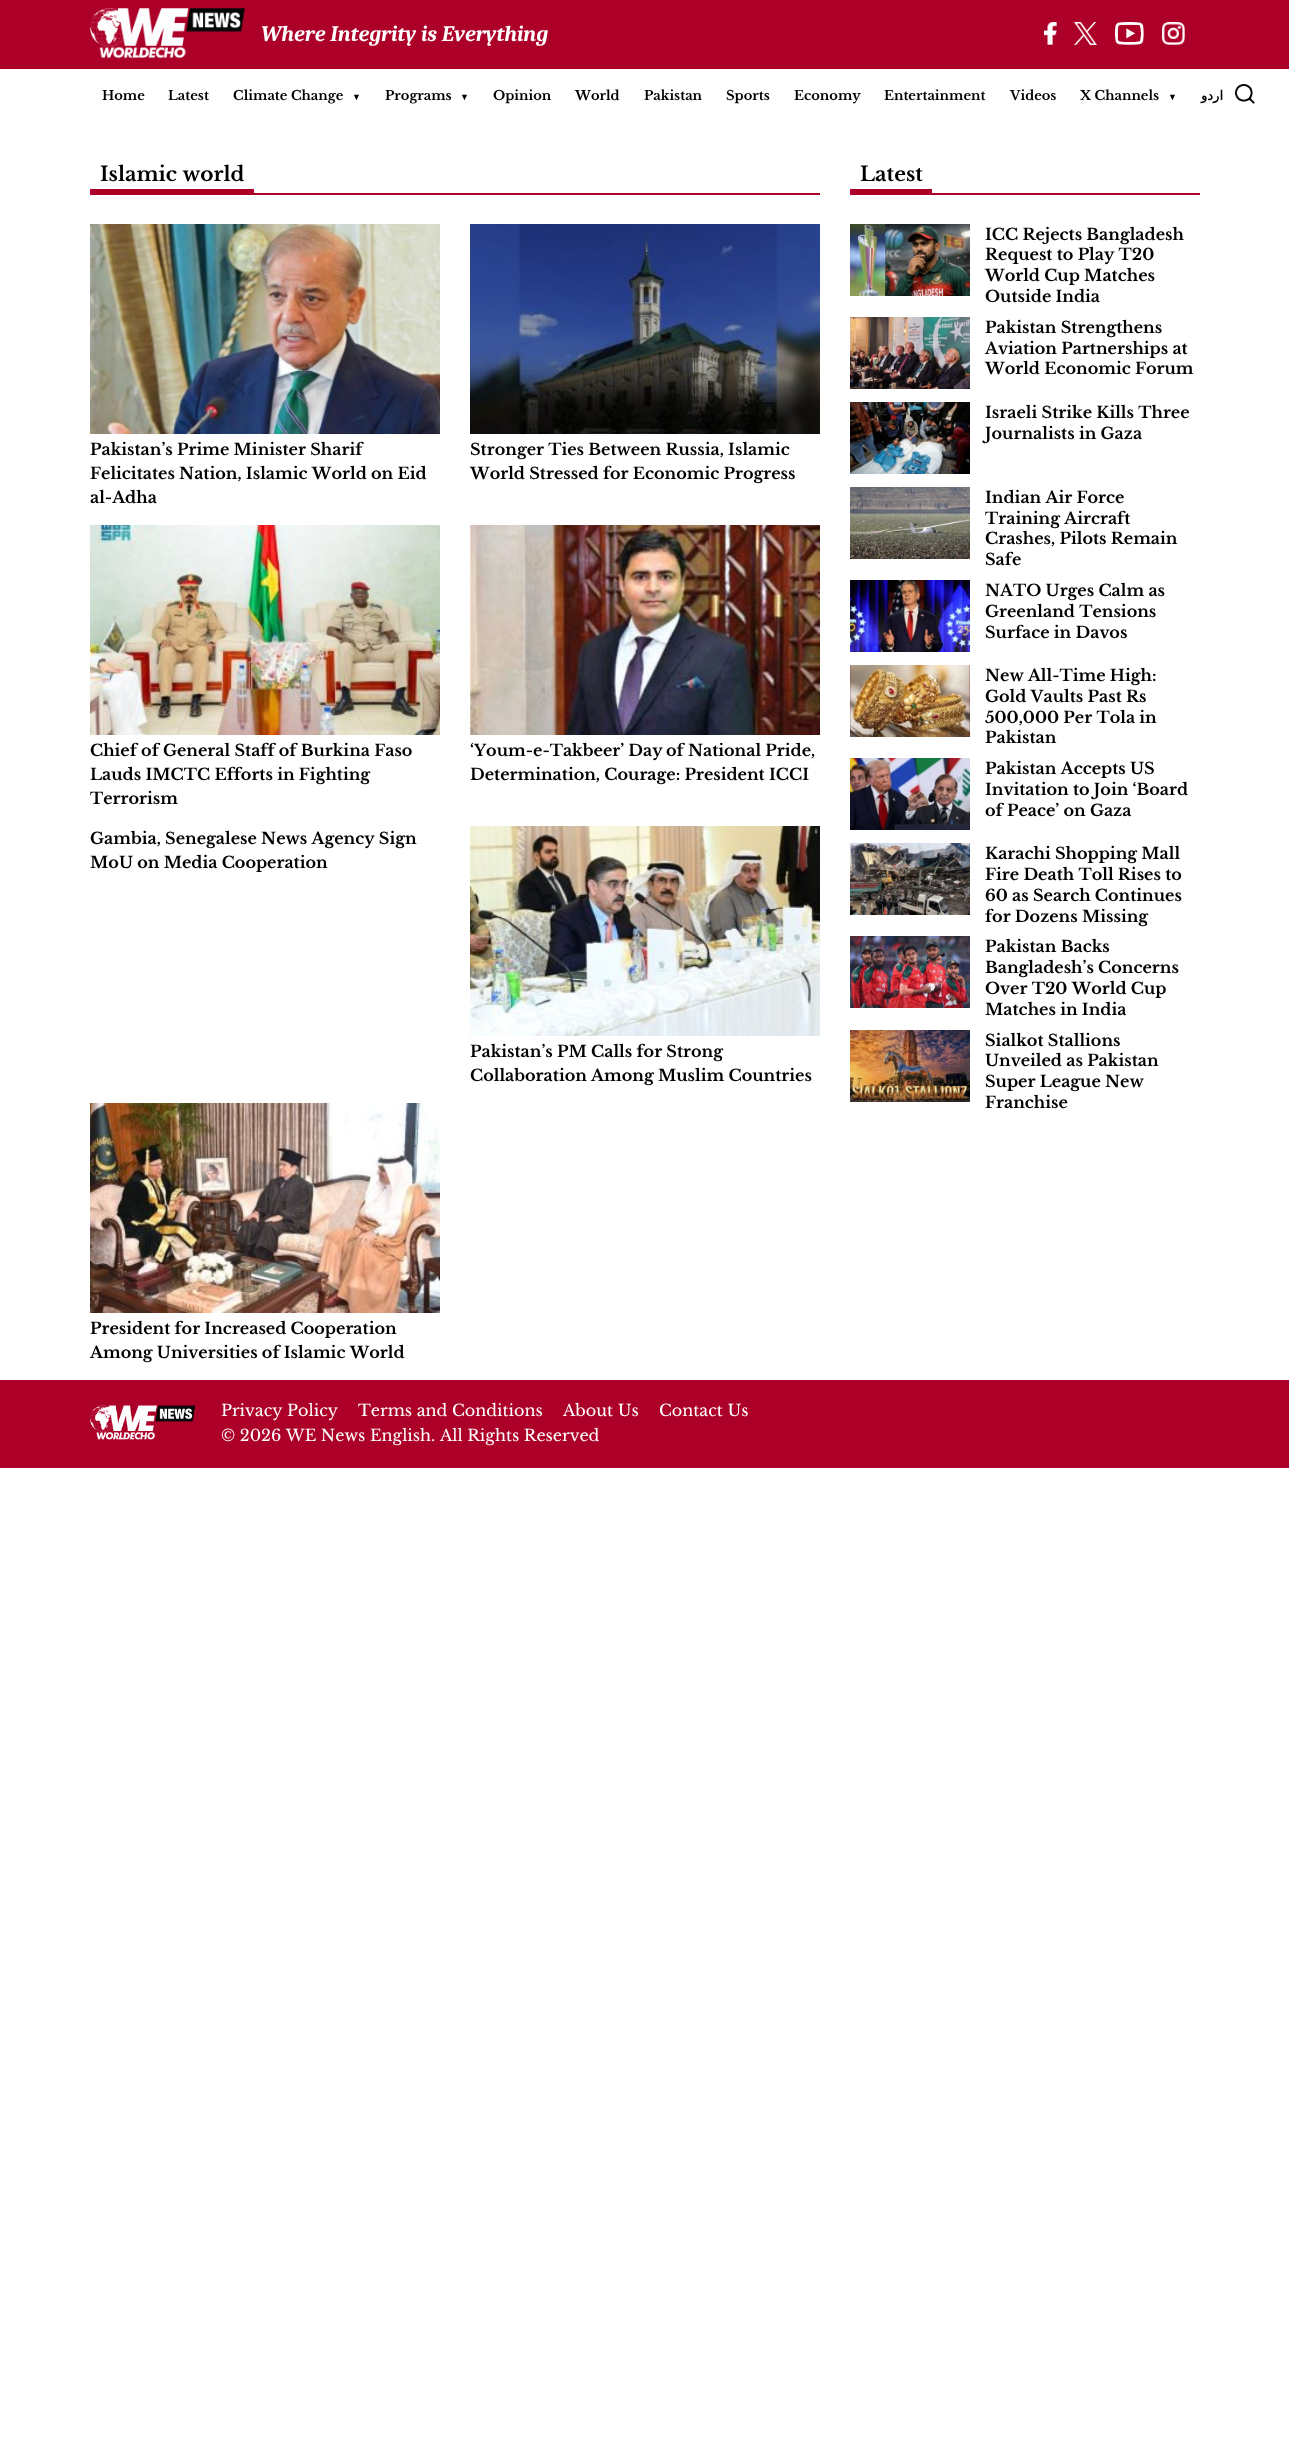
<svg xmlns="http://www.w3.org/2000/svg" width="1289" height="2437">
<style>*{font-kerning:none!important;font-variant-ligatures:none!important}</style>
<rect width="100%" height="100%" fill="#fff"/>
<rect width="1289" height="69" fill="#ad0029"/>
<image x="90" y="8" width="156" height="51" href="media/1.png"/>
<text x="261" y="41" style="font-family:Caladea;font-size:22px;font-weight:bold;font-style:italic;fill:#fff">Where Integrity is Everything</text>
<image x="1044" y="22" width="13" height="23" href="media/2.png"/>
<image x="1074" y="22" width="23" height="23" href="media/3.png"/>
<image x="1115" y="22" width="29" height="23" href="media/4.png"/>
<image x="1162" y="22" width="23" height="23" href="media/5.png"/>
<text x="102" y="100" style="font-family:Libre Baskerville;font-size:13px;font-weight:bold;fill:#000">Home</text>
<text x="168" y="100" style="font-family:Libre Baskerville;font-size:13px;font-weight:bold;fill:#000">Latest</text>
<text x="233" y="100" style="font-family:Libre Baskerville;font-size:13px;font-weight:bold;fill:#000">Climate Change</text>
<text x="352" y="100" style="font-family:Liberation Serif;font-size:9px;font-weight:bold;fill:#000">▼</text>
<text x="385" y="100" style="font-family:Libre Baskerville;font-size:13px;font-weight:bold;fill:#000">Programs</text>
<text x="460" y="100" style="font-family:Liberation Serif;font-size:9px;font-weight:bold;fill:#000">▼</text>
<text x="493" y="100" style="font-family:Libre Baskerville;font-size:13px;font-weight:bold;fill:#000">Opinion</text>
<text x="575" y="100" style="font-family:Libre Baskerville;font-size:13px;font-weight:bold;fill:#000">World</text>
<text x="644" y="100" style="font-family:Libre Baskerville;font-size:13px;font-weight:bold;fill:#000">Pakistan</text>
<text x="726" y="100" style="font-family:Libre Baskerville;font-size:13px;font-weight:bold;fill:#000">Sports</text>
<text x="794" y="100" style="font-family:Libre Baskerville;font-size:13px;font-weight:bold;fill:#000">Economy</text>
<text x="884" y="100" style="font-family:Libre Baskerville;font-size:13px;font-weight:bold;fill:#000">Entertainment</text>
<text x="1010" y="100" style="font-family:Libre Baskerville;font-size:13px;font-weight:bold;fill:#000">Videos</text>
<text x="1080" y="100" style="font-family:Libre Baskerville;font-size:13px;font-weight:bold;fill:#000">X Channels</text>
<text x="1168" y="100" style="font-family:Liberation Serif;font-size:9px;font-weight:bold;fill:#000">▼</text>
<text x="1223" y="100" style="font-family:DejaVu Sans;font-size:13px;font-weight:bold;direction:rtl;fill:#000">اردو</text>
<image x="1235" y="84" width="20" height="20" href="media/6.png"/>
<rect x="90" y="193" width="730" height="2" fill="#ad0029"/>
<text x="100" y="181" style="font-family:Libre Baskerville;font-size:20px;font-weight:bold;fill:#000">Islamic world</text>
<rect x="90" y="189" width="164" height="4" fill="#ad0029"/>
<image x="90" y="224" width="350" height="210" href="media/7.png"/>
<text x="90" y="455" style="font-family:Libre Baskerville;font-size:16px;font-weight:bold;fill:#000">Pakistan’s Prime Minister Sharif</text>
<text x="90" y="479" style="font-family:Libre Baskerville;font-size:16px;font-weight:bold;fill:#000">Felicitates Nation, Islamic World on Eid</text>
<text x="90" y="503" style="font-family:Libre Baskerville;font-size:16px;font-weight:bold;fill:#000">al-Adha</text>
<image x="470" y="224" width="350" height="210" href="media/8.png"/>
<text x="470" y="455" style="font-family:Libre Baskerville;font-size:16px;font-weight:bold;fill:#000">Stronger Ties Between Russia, Islamic</text>
<text x="470" y="479" style="font-family:Libre Baskerville;font-size:16px;font-weight:bold;fill:#000">World Stressed for Economic Progress</text>
<image x="90" y="525" width="350" height="210" href="media/9.png"/>
<text x="90" y="756" style="font-family:Libre Baskerville;font-size:16px;font-weight:bold;fill:#000">Chief of General Staff of Burkina Faso</text>
<text x="90" y="780" style="font-family:Libre Baskerville;font-size:16px;font-weight:bold;fill:#000">Lauds IMCTC Efforts in Fighting</text>
<text x="90" y="804" style="font-family:Libre Baskerville;font-size:16px;font-weight:bold;fill:#000">Terrorism</text>
<image x="470" y="525" width="350" height="210" href="media/10.png"/>
<text x="470" y="756" style="font-family:Libre Baskerville;font-size:16px;font-weight:bold;fill:#000">‘Youm-e-Takbeer’ Day</text>
<text x="666" y="756" style="font-family:Libre Baskerville;font-size:16px;font-weight:bold;fill:#000">of National Pride,</text>
<text x="470" y="780" style="font-family:Libre Baskerville;font-size:16px;font-weight:bold;fill:#000">Determination, Courage: President ICCI</text>
<text x="90" y="844" style="font-family:Libre Baskerville;font-size:16px;font-weight:bold;fill:#000">Gambia, Senegalese News Agency Sign</text>
<text x="90" y="868" style="font-family:Libre Baskerville;font-size:16px;font-weight:bold;fill:#000">MoU on Media Cooperation</text>
<image x="470" y="826" width="350" height="210" href="media/11.png"/>
<text x="470" y="1057" style="font-family:Libre Baskerville;font-size:16px;font-weight:bold;fill:#000">Pakistan’s PM Calls for Strong</text>
<text x="470" y="1081" style="font-family:Libre Baskerville;font-size:16px;font-weight:bold;fill:#000">Collaboration Among Muslim Countries</text>
<image x="90" y="1103" width="350" height="210" href="media/12.png"/>
<text x="90" y="1334" style="font-family:Libre Baskerville;font-size:16px;font-weight:bold;fill:#000">President for Increased Cooperation</text>
<text x="90" y="1358" style="font-family:Libre Baskerville;font-size:16px;font-weight:bold;fill:#000">Among Universities of Islamic World</text>
<rect x="850" y="193" width="350" height="2" fill="#ad0029"/>
<text x="860" y="181" style="font-family:Libre Baskerville;font-size:20px;font-weight:bold;fill:#000">Latest</text>
<rect x="850" y="189" width="82" height="4" fill="#ad0029"/>
<image x="850" y="224" width="120" height="72" href="media/13.png"/>
<text x="985" y="240" style="font-family:Libre Baskerville;font-size:16px;font-weight:bold;fill:#000">ICC Rejects Bangladesh</text>
<text x="985" y="260" style="font-family:Libre Baskerville;font-size:16px;font-weight:bold;fill:#000">Request to Play T20</text>
<text x="985" y="281" style="font-family:Libre Baskerville;font-size:16px;font-weight:bold;fill:#000">World Cup Matches</text>
<text x="985" y="302" style="font-family:Libre Baskerville;font-size:16px;font-weight:bold;fill:#000">Outside India</text>
<image x="850" y="317" width="120" height="72" href="media/14.png"/>
<text x="985" y="333" style="font-family:Libre Baskerville;font-size:16px;font-weight:bold;fill:#000">Pakistan Strengthens</text>
<text x="985" y="354" style="font-family:Libre Baskerville;font-size:16px;font-weight:bold;fill:#000">Aviation Partnerships at</text>
<text x="985" y="374" style="font-family:Libre Baskerville;font-size:16px;font-weight:bold;fill:#000">World Economic Forum</text>
<image x="850" y="402" width="120" height="72" href="media/15.png"/>
<text x="985" y="418" style="font-family:Libre Baskerville;font-size:16px;font-weight:bold;fill:#000">Israeli Strike Kills Three</text>
<text x="985" y="439" style="font-family:Libre Baskerville;font-size:16px;font-weight:bold;fill:#000">Journalists in Gaza</text>
<image x="850" y="487" width="120" height="72" href="media/16.png"/>
<text x="985" y="503" style="font-family:Libre Baskerville;font-size:16px;font-weight:bold;fill:#000">Indian Air Force</text>
<text x="985" y="524" style="font-family:Libre Baskerville;font-size:16px;font-weight:bold;fill:#000">Training Aircraft</text>
<text x="985" y="544" style="font-family:Libre Baskerville;font-size:16px;font-weight:bold;fill:#000">Crashes, Pilots Remain</text>
<text x="985" y="565" style="font-family:Libre Baskerville;font-size:16px;font-weight:bold;fill:#000">Safe</text>
<image x="850" y="580" width="120" height="72" href="media/17.png"/>
<text x="985" y="596" style="font-family:Libre Baskerville;font-size:16px;font-weight:bold;fill:#000">NATO Urges Calm as</text>
<text x="985" y="617" style="font-family:Libre Baskerville;font-size:16px;font-weight:bold;fill:#000">Greenland Tensions</text>
<text x="985" y="638" style="font-family:Libre Baskerville;font-size:16px;font-weight:bold;fill:#000">Surface in Davos</text>
<image x="850" y="665" width="120" height="72" href="media/18.png"/>
<text x="985" y="681" style="font-family:Libre Baskerville;font-size:16px;font-weight:bold;fill:#000">New All-Time High:</text>
<text x="985" y="702" style="font-family:Libre Baskerville;font-size:16px;font-weight:bold;fill:#000">Gold Vaults Past Rs</text>
<text x="985" y="723" style="font-family:Libre Baskerville;font-size:16px;font-weight:bold;fill:#000">500,000 Per Tola in</text>
<text x="985" y="743" style="font-family:Libre Baskerville;font-size:16px;font-weight:bold;fill:#000">Pakistan</text>
<image x="850" y="758" width="120" height="72" href="media/19.png"/>
<text x="985" y="774" style="font-family:Libre Baskerville;font-size:16px;font-weight:bold;fill:#000">Pakistan Accepts US</text>
<text x="985" y="795" style="font-family:Libre Baskerville;font-size:16px;font-weight:bold;fill:#000">Invitation to Join ‘Board</text>
<text x="985" y="816" style="font-family:Libre Baskerville;font-size:16px;font-weight:bold;fill:#000">of Peace’ on Gaza</text>
<image x="850" y="843" width="120" height="72" href="media/20.png"/>
<text x="985" y="859" style="font-family:Libre Baskerville;font-size:16px;font-weight:bold;fill:#000">Karachi Shopping Mall</text>
<text x="985" y="880" style="font-family:Libre Baskerville;font-size:16px;font-weight:bold;fill:#000">Fire Death Toll Rises to</text>
<text x="985" y="901" style="font-family:Libre Baskerville;font-size:16px;font-weight:bold;fill:#000">60 as Search Continues</text>
<text x="985" y="922" style="font-family:Libre Baskerville;font-size:16px;font-weight:bold;fill:#000">for Dozens Missing</text>
<image x="850" y="936" width="120" height="72" href="media/21.png"/>
<text x="985" y="952" style="font-family:Libre Baskerville;font-size:16px;font-weight:bold;fill:#000">Pakistan Backs</text>
<text x="985" y="973" style="font-family:Libre Baskerville;font-size:16px;font-weight:bold;fill:#000">Bangladesh’s Concerns</text>
<text x="985" y="994" style="font-family:Libre Baskerville;font-size:16px;font-weight:bold;fill:#000">Over T20 World Cup</text>
<text x="985" y="1015" style="font-family:Libre Baskerville;font-size:16px;font-weight:bold;fill:#000">Matches in India</text>
<image x="850" y="1030" width="120" height="72" href="media/22.png"/>
<text x="985" y="1046" style="font-family:Libre Baskerville;font-size:16px;font-weight:bold;fill:#000">Sialkot Stallions</text>
<text x="985" y="1066" style="font-family:Libre Baskerville;font-size:16px;font-weight:bold;fill:#000">Unveiled as Pakistan</text>
<text x="985" y="1087" style="font-family:Libre Baskerville;font-size:16px;font-weight:bold;fill:#000">Super League New</text>
<text x="985" y="1108" style="font-family:Libre Baskerville;font-size:16px;font-weight:bold;fill:#000">Franchise</text>
<rect y="1380" width="1289" height="88" fill="#ad0029"/>
<image x="90" y="1405" width="106" height="35" href="media/23.png"/>
<text x="221" y="1416" style="font-family:Libre Baskerville;font-size:16px;fill:#fff">Privacy Policy</text>
<text x="358" y="1416" style="font-family:Libre Baskerville;font-size:16px;fill:#fff">Terms and Conditions</text>
<text x="563" y="1416" style="font-family:Libre Baskerville;font-size:16px;fill:#fff">About Us</text>
<text x="659" y="1416" style="font-family:Libre Baskerville;font-size:16px;fill:#fff">Contact Us</text>
<text x="221" y="1441" style="font-family:Libre Baskerville;font-size:16px;fill:#fff">© 2026 WE News English. All Rights Reserved</text>
</svg>
